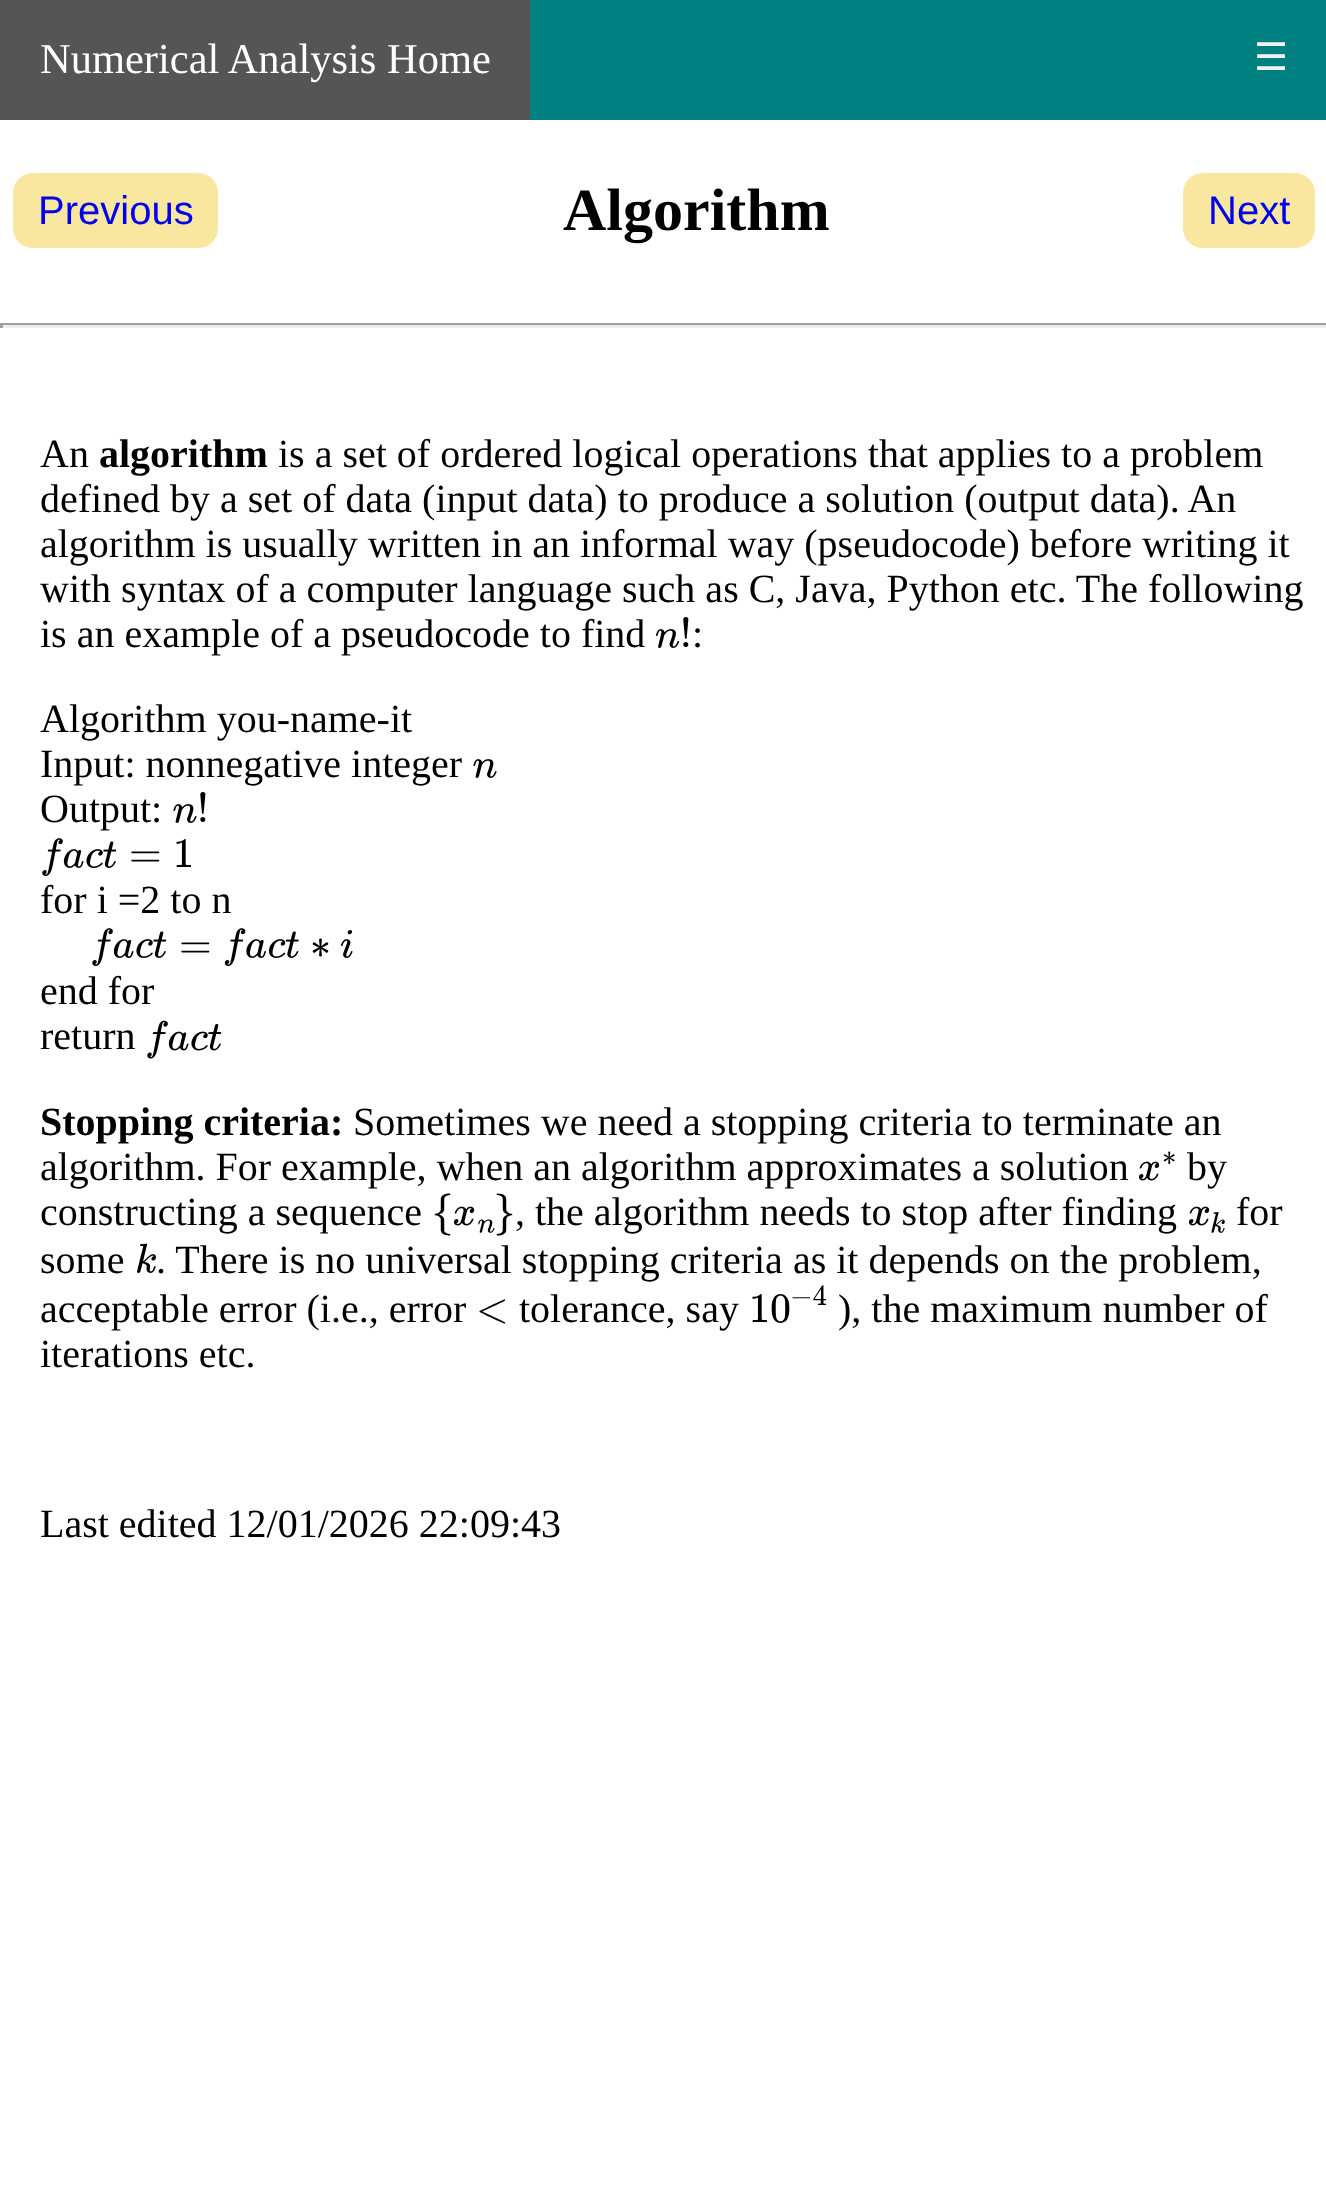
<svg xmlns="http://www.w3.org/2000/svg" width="1326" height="2186">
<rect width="100%" height="100%" fill="#fff"/>
<rect x="530" width="796" height="120" fill="#008080"/>
<rect width="530" height="120" fill="#555"/>
<text x="40" y="73" style="font-family:Liberation Serif;font-size:42.5px;fill:#fff">Numerical Analysis Home</text>
<text x="1254" y="70" style="font-family:DejaVu Sans;font-size:38px;fill:#f2f2f2">☰</text>
<rect x="13" y="173" width="205" height="75" rx="20" fill="#f9e79f"/>
<text x="38" y="224" style="font-family:Liberation Sans;font-size:40px;fill:#00e">Previous</text>
<text x="563" y="230" style="font-family:Liberation Serif;font-size:60px;font-weight:bold;fill:#000">Algorithm</text>
<rect x="1183" y="173" width="132" height="75" rx="20" fill="#f9e79f"/>
<text x="1208" y="224" style="font-family:Liberation Sans;font-size:40px;fill:#00e">Next</text>
<rect y="323" width="1326" height="2" fill="#9f9f9f"/>
<rect y="325" width="1326" height="3" fill="#eee"/>
<rect y="323" width="3" height="5" fill="#9f9f9f"/>
<text x="40" y="467" style="font-family:Liberation Serif;font-size:40px;fill:#000">An</text>
<text x="99" y="467" style="font-family:Liberation Serif;font-size:40px;font-weight:bold;fill:#000">algorithm</text>
<text x="278" y="467" style="font-family:Liberation Serif;font-size:40px;fill:#000">is a set of ordered logical operations that applies to a problem</text>
<text x="40" y="512" style="font-family:Liberation Serif;font-size:40px;fill:#000">defined by a set of data (input data) to produce a solution (output data). An</text>
<text x="40" y="557" style="font-family:Liberation Serif;font-size:40px;fill:#000">algorithm is usually written in an informal way (pseudocode) before writing it</text>
<text x="40" y="602" style="font-family:Liberation Serif;font-size:40px;fill:#000">with syntax of a computer language such as C, Java, Python etc. The following</text>
<text x="40" y="647" style="font-family:Liberation Serif;font-size:40px;fill:#000">is an example of a pseudocode to find</text>
<image x="655" y="629" width="25" height="19" href="media/1.png"/>
<text x="680" y="647" style="font-family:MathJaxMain;font-size:42px;fill:#000">!</text>
<text x="692" y="647" style="font-family:Liberation Serif;font-size:40px;fill:#000">:</text>
<text x="40" y="732" style="font-family:Liberation Serif;font-size:40px;fill:#000">Algorithm you-name-it</text>
<text x="40" y="777" style="font-family:Liberation Serif;font-size:40px;fill:#000">Input: nonnegative integer</text>
<image x="473" y="759" width="24" height="19" href="media/2.png"/>
<text x="40" y="822" style="font-family:Liberation Serif;font-size:40px;fill:#000">Output:</text>
<image x="173" y="804" width="24" height="19" href="media/2.png"/>
<text x="197" y="822" style="font-family:MathJaxMain;font-size:42px;fill:#000">!</text>
<image x="42" y="838" width="21" height="38" href="media/3.png"/>
<image x="63" y="849" width="21" height="19" href="media/4.png"/>
<image x="86" y="849" width="17" height="19" href="media/5.png"/>
<image x="103" y="841" width="14" height="27" href="media/6.png"/>
<text x="129" y="867" style="font-family:MathJaxMain;font-size:42px;fill:#000">=</text>
<text x="173" y="867" style="font-family:MathJaxMain;font-size:42px;fill:#000">1</text>
<text x="40" y="913" style="font-family:Liberation Serif;font-size:40px;fill:#000">for i =2 to n</text>
<image x="92" y="928" width="21" height="38" href="media/3.png"/>
<image x="113" y="939" width="21" height="19" href="media/4.png"/>
<image x="136" y="939" width="17" height="19" href="media/5.png"/>
<image x="153" y="931" width="14" height="27" href="media/6.png"/>
<text x="179" y="958" style="font-family:MathJaxMain;font-size:42px;fill:#000">=</text>
<image x="224" y="928" width="22" height="38" href="media/7.png"/>
<image x="246" y="939" width="20" height="19" href="media/8.png"/>
<image x="268" y="939" width="18" height="19" href="media/9.png"/>
<image x="285" y="931" width="14" height="27" href="media/10.png"/>
<text x="310" y="958" style="font-family:MathJaxMain;font-size:42px;fill:#000">∗</text>
<image x="340" y="930" width="13" height="28" href="media/11.png"/>
<text x="40" y="1004" style="font-family:Liberation Serif;font-size:40px;fill:#000">end for</text>
<text x="40" y="1049" style="font-family:Liberation Serif;font-size:40px;fill:#000">return</text>
<image x="147" y="1020" width="21" height="39" href="media/12.png"/>
<image x="168" y="1031" width="21" height="20" href="media/13.png"/>
<image x="191" y="1031" width="17" height="20" href="media/14.png"/>
<image x="208" y="1024" width="14" height="27" href="media/15.png"/>
<text x="40" y="1135" style="font-family:Liberation Serif;font-size:40px;font-weight:bold;fill:#000">Stopping criteria:</text>
<text x="353" y="1135" style="font-family:Liberation Serif;font-size:40px;fill:#000">Sometimes we need a stopping criteria to terminate an</text>
<text x="40" y="1180" style="font-family:Liberation Serif;font-size:40px;fill:#000">algorithm. For example, when an algorithm approximates a solution</text>
<text x="1162" y="1165" style="font-family:MathJaxMain;font-size:29px;fill:#000">∗</text>
<image x="1139" y="1161" width="21" height="20" href="media/16.png"/>
<text x="1187" y="1180" style="font-family:Liberation Serif;font-size:40px;fill:#000">by</text>
<text x="40" y="1225" style="font-family:Liberation Serif;font-size:40px;fill:#000">constructing a sequence</text>
<text x="432" y="1225" style="font-family:MathJaxMain;font-size:42px;fill:#000">{</text>
<image x="454" y="1206" width="21" height="20" href="media/16.png"/>
<image x="478" y="1219" width="17" height="14" href="media/17.png"/>
<text x="494" y="1225" style="font-family:MathJaxMain;font-size:42px;fill:#000">}</text>
<text x="515" y="1225" style="font-family:Liberation Serif;font-size:40px;fill:#000">, the algorithm needs to stop after finding</text>
<image x="1189" y="1206" width="21" height="20" href="media/16.png"/>
<image x="1211" y="1212" width="14" height="21" href="media/18.png"/>
<text x="1236" y="1225" style="font-family:Liberation Serif;font-size:40px;fill:#000">for</text>
<text x="40" y="1273" style="font-family:Liberation Serif;font-size:40px;fill:#000">some</text>
<image x="137" y="1243" width="19" height="30" href="media/19.png"/>
<text x="156" y="1273" style="font-family:Liberation Serif;font-size:40px;fill:#000">. There is no universal stopping criteria as it depends on the problem,</text>
<text x="40" y="1322" style="font-family:Liberation Serif;font-size:40px;fill:#000">acceptable error (i.e., error</text>
<text x="476" y="1322" style="font-family:MathJaxMain;font-size:42px;fill:#000">&lt;</text>
<text x="519" y="1322" style="font-family:Liberation Serif;font-size:40px;fill:#000">tolerance, say</text>
<text x="749" y="1322" style="font-family:MathJaxMain;font-size:42px;fill:#000">10</text>
<text x="790" y="1305" style="font-family:MathJaxMain;font-size:29px;fill:#000">−4</text>
<text x="838" y="1322" style="font-family:Liberation Serif;font-size:40px;fill:#000">), the maximum number of</text>
<text x="40" y="1367" style="font-family:Liberation Serif;font-size:40px;fill:#000">iterations etc.</text>
<text x="40" y="1537" style="font-family:Liberation Serif;font-size:40px;fill:#000">Last edited 12/01/2026 22:09:43</text>
</svg>
